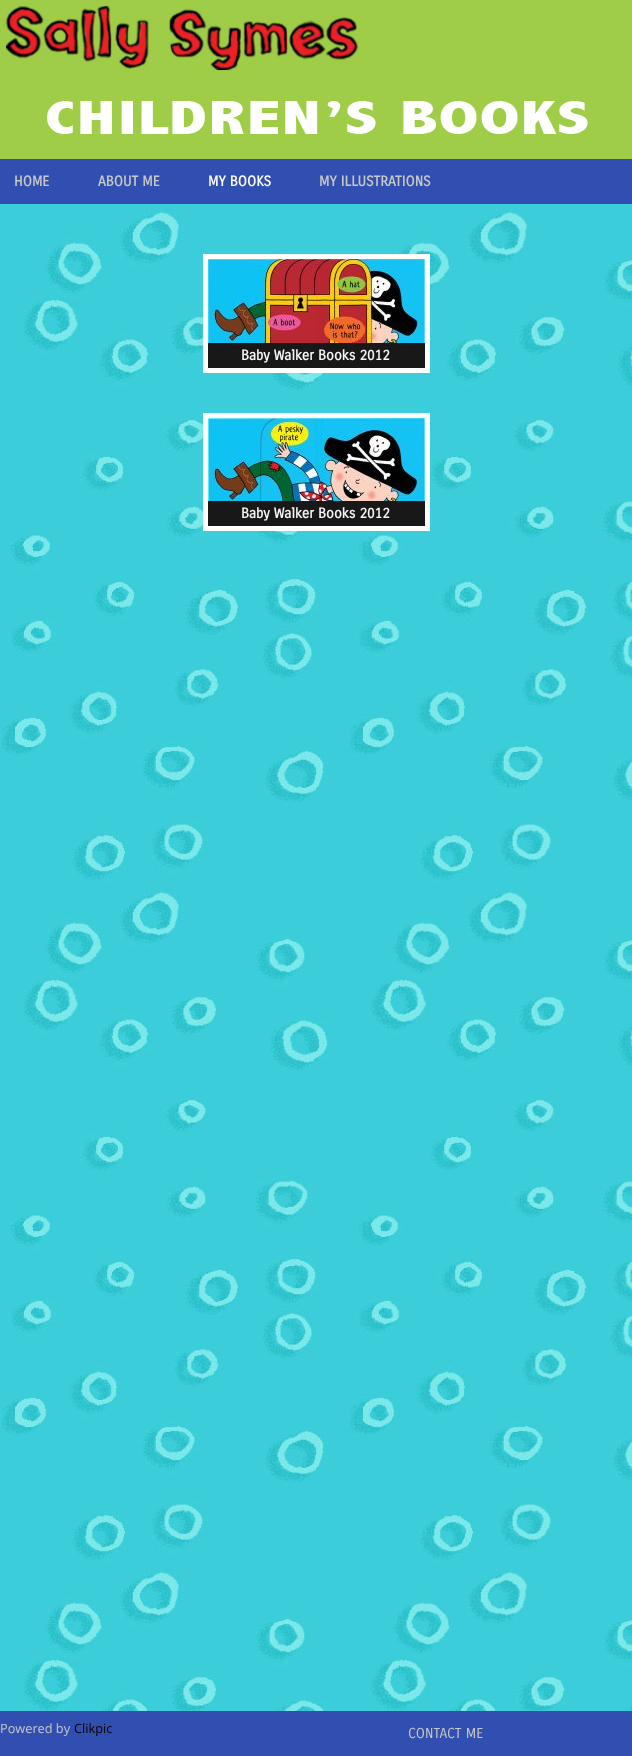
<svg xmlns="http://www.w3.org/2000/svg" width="632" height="1756">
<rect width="100%" height="100%" fill="#9fcd47"/>
<image x="0" y="5" width="359" height="66" href="media/1.png"/>
<image x="45" y="99" width="543" height="39" href="media/2.png"/>
<rect y="159" width="632" height="45" fill="#314fb1"/>
<text x="14" y="186" style="font-family:Carrois Gothic;font-size:14px;font-weight:bold;fill:#c8c8c8">HOME</text>
<text x="98" y="186" style="font-family:Carrois Gothic;font-size:14px;font-weight:bold;fill:#c8c8c8">ABOUT ME</text>
<text x="208" y="186" style="font-family:Carrois Gothic;font-size:14px;font-weight:bold;fill:#fff">MY BOOKS</text>
<text x="319" y="186" style="font-family:Carrois Gothic;font-size:14px;font-weight:bold;fill:#c8c8c8">MY ILLUSTRATIONS</text>
<image x="0" y="204" width="632" height="1507" href="media/3.png"/>
<rect x="205.5" y="256.5" width="222" height="114" fill="none" stroke="#fff" stroke-width="5"/>
<image x="208" y="259" width="217" height="84" href="media/4.png"/>
<rect x="208" y="343" width="217" height="25" fill="#181818"/>
<text x="241" y="360" style="font-family:Carrois Gothic;font-size:14px;font-weight:bold;fill:#faf5f5">Baby Walker Books 2012</text>
<rect x="205.5" y="415.5" width="222" height="113" fill="none" stroke="#fff" stroke-width="5"/>
<image x="208" y="418" width="217" height="83" href="media/5.png"/>
<rect x="208" y="501" width="217" height="25" fill="#181818"/>
<text x="241" y="518" style="font-family:Carrois Gothic;font-size:14px;font-weight:bold;fill:#faf5f5">Baby Walker Books 2012</text>
<rect y="1711" width="632" height="45" fill="#314fb1"/>
<text x="0" y="1733" style="font-family:Open Sans;font-size:12.75px;fill:#c8c8c8">Powered by</text>
<text x="74" y="1733" style="font-family:Open Sans;font-size:12.75px;fill:#0d0101">Clikpic</text>
<text x="408" y="1738" style="font-family:Carrois Gothic;font-size:14px;fill:#c8c8c8">CONTACT ME</text>
</svg>
